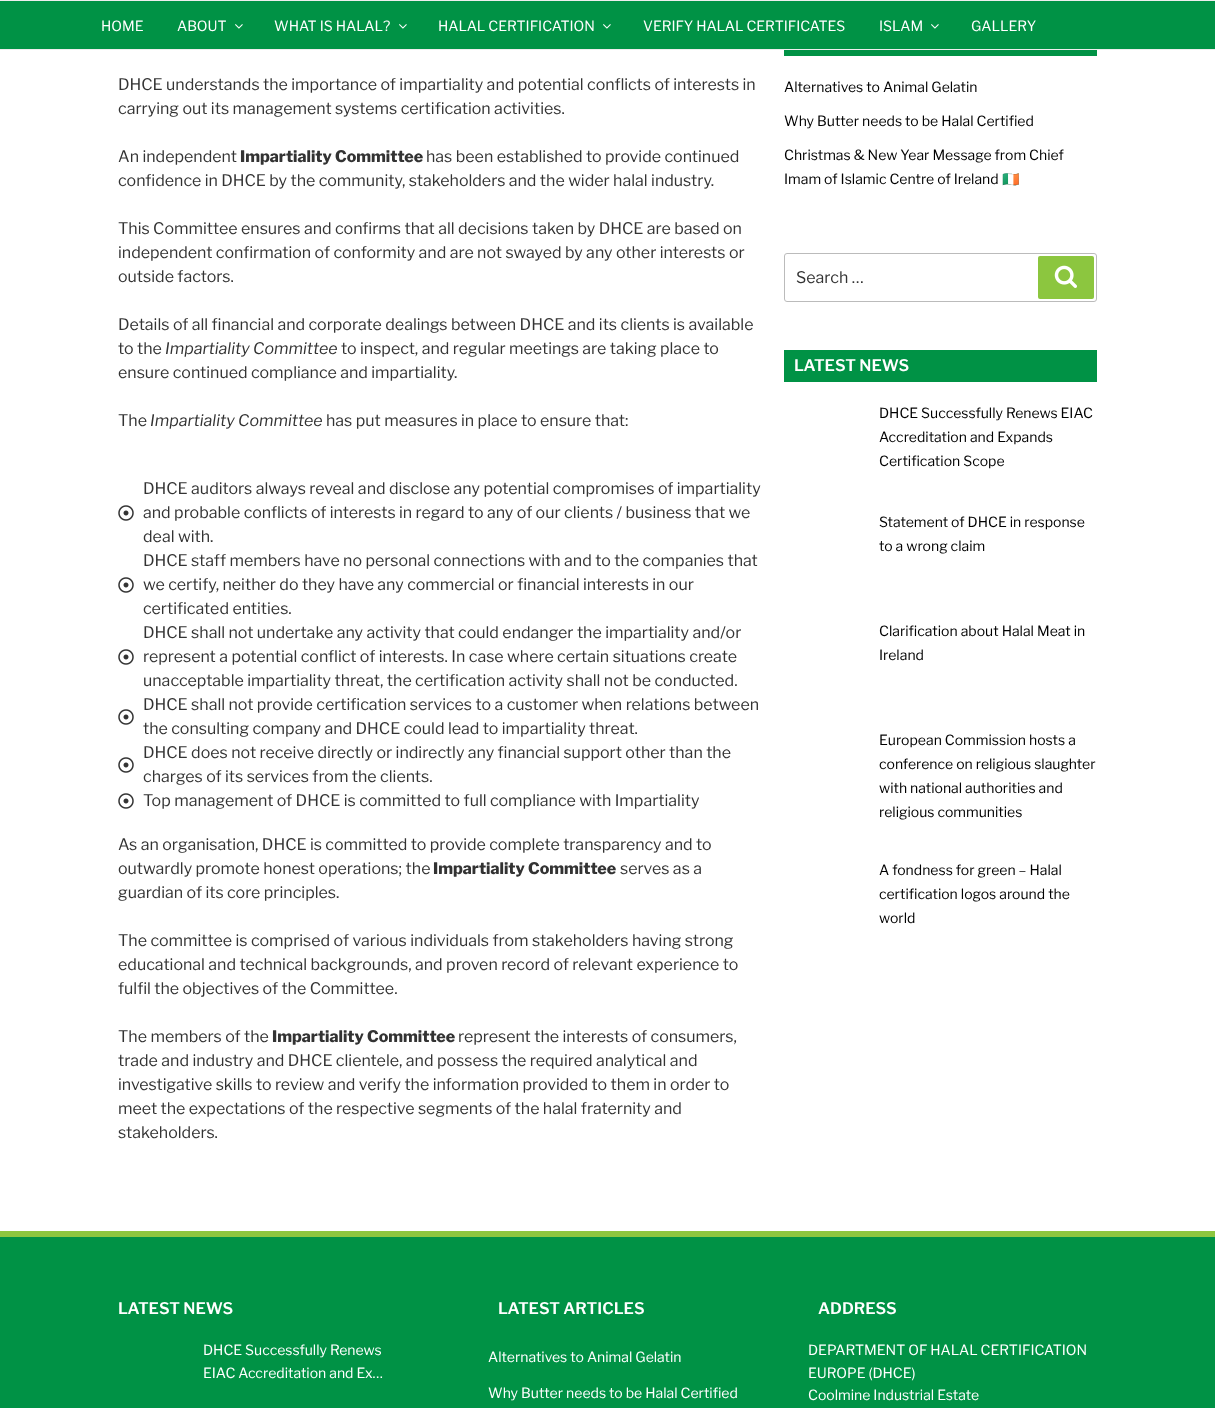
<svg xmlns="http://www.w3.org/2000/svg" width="1215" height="1408">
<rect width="100%" height="100%" fill="#fff"/>
<rect y="1" width="1215" height="48" fill="#009245"/>
<rect width="1215" height="1" fill="#eee"/>
<rect y="49" width="1215" height="1" fill="#eee"/>
<text x="101" y="31" style="font-family:'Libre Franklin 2';font-size:14px;font-weight:100;fill:#fff">HOME</text>
<text x="177" y="31" style="font-family:'Libre Franklin 2';font-size:14px;font-weight:100;fill:#fff">ABOUT</text>
<image x="235" y="24" width="8" height="5" href="media/1.png"/>
<text x="274" y="31" style="font-family:'Libre Franklin 2';font-size:14px;font-weight:100;fill:#fff">WHAT IS HALAL?</text>
<image x="399" y="24" width="8" height="5" href="media/1.png"/>
<text x="438" y="31" style="font-family:'Libre Franklin 2';font-size:14px;font-weight:100;fill:#fff">HALAL CERTIFICATION</text>
<image x="603" y="24" width="8" height="5" href="media/1.png"/>
<text x="643" y="31" style="font-family:'Libre Franklin 2';font-size:14px;font-weight:100;fill:#fff">VERIFY HALAL CERTIFICATES</text>
<text x="879" y="31" style="font-family:'Libre Franklin 2';font-size:14px;font-weight:100;fill:#fff">ISLAM</text>
<image x="931" y="24" width="8" height="5" href="media/1.png"/>
<text x="971" y="31" style="font-family:'Libre Franklin 2';font-size:14px;font-weight:100;fill:#fff">GALLERY</text>
<text x="118" y="90" style="font-family:'Libre Franklin 2';font-size:16px;font-weight:100;fill:#333">DHCE understands the importance of impartiality and potential conflicts of interests in</text>
<text x="118" y="114" style="font-family:'Libre Franklin 2';font-size:16px;font-weight:100;fill:#333">carrying out its management systems certification activities.</text>
<text x="118" y="162" style="font-family:'Libre Franklin 2';font-size:16px;font-weight:100;fill:#333">An independent</text>
<text x="240" y="162" style="font-family:'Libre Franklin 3';font-size:16px;font-weight:100;fill:#333">Impartiality Committee</text>
<text x="426" y="162" style="font-family:'Libre Franklin 2';font-size:16px;font-weight:100;fill:#333">has been established to provide continued</text>
<text x="118" y="186" style="font-family:'Libre Franklin 2';font-size:16px;font-weight:100;fill:#333">confidence in DHCE by the community, stakeholders and the wider halal industry.</text>
<text x="118" y="234" style="font-family:'Libre Franklin 2';font-size:16px;font-weight:100;fill:#333">This Committee ensures and confirms that all decisions taken by DHCE are based on</text>
<text x="118" y="258" style="font-family:'Libre Franklin 2';font-size:16px;font-weight:100;fill:#333">independent confirmation of conformity and are not swayed by any other interests or</text>
<text x="118" y="282" style="font-family:'Libre Franklin 2';font-size:16px;font-weight:100;fill:#333">outside factors.</text>
<text x="118" y="330" style="font-family:'Libre Franklin 2';font-size:16px;font-weight:100;fill:#333">Details of all financial and corporate dealings between DHCE and its clients is available</text>
<text x="118" y="354" style="font-family:'Libre Franklin 2';font-size:16px;font-weight:100;fill:#333">to the</text>
<text x="165" y="354" style="font-family:Libre Franklin;font-size:16px;font-weight:100;font-style:italic;fill:#333">Impartiality Committee</text>
<text x="341" y="354" style="font-family:'Libre Franklin 2';font-size:16px;font-weight:100;fill:#333">to inspect, and regular meetings are taking place to</text>
<text x="118" y="378" style="font-family:'Libre Franklin 2';font-size:16px;font-weight:100;fill:#333">ensure continued compliance and impartiality.</text>
<text x="118" y="426" style="font-family:'Libre Franklin 2';font-size:16px;font-weight:100;fill:#333">The</text>
<text x="150" y="426" style="font-family:Libre Franklin;font-size:16px;font-weight:100;font-style:italic;fill:#333">Impartiality Committee</text>
<text x="326" y="426" style="font-family:'Libre Franklin 2';font-size:16px;font-weight:100;fill:#333">has put measures in place to ensure that:</text>
<image x="118" y="505" width="16" height="16" href="media/2.png"/>
<text x="143" y="494" style="font-family:'Libre Franklin 2';font-size:16px;font-weight:100;fill:#333">DHCE auditors always reveal and disclose any potential compromises of impartiality</text>
<text x="143" y="518" style="font-family:'Libre Franklin 2';font-size:16px;font-weight:100;fill:#333">and probable conflicts of interests in regard to any of our clients / business that we</text>
<text x="143" y="542" style="font-family:'Libre Franklin 2';font-size:16px;font-weight:100;fill:#333">deal with.</text>
<image x="118" y="577" width="16" height="16" href="media/2.png"/>
<text x="143" y="566" style="font-family:'Libre Franklin 2';font-size:16px;font-weight:100;fill:#333">DHCE staff members have no personal connections with and to the companies that</text>
<text x="143" y="590" style="font-family:'Libre Franklin 2';font-size:16px;font-weight:100;fill:#333">we certify, neither do they have any commercial or financial interests in our</text>
<text x="143" y="614" style="font-family:'Libre Franklin 2';font-size:16px;font-weight:100;fill:#333">certificated entities.</text>
<image x="118" y="649" width="16" height="16" href="media/2.png"/>
<text x="143" y="638" style="font-family:'Libre Franklin 2';font-size:16px;font-weight:100;fill:#333">DHCE shall not undertake any activity that could endanger the impartiality and/or</text>
<text x="143" y="662" style="font-family:'Libre Franklin 2';font-size:16px;font-weight:100;fill:#333">represent a potential conflict of interests. In case where certain situations create</text>
<text x="143" y="686" style="font-family:'Libre Franklin 2';font-size:16px;font-weight:100;fill:#333">unacceptable impartiality threat, the certification activity shall not be conducted.</text>
<image x="118" y="709" width="16" height="16" href="media/2.png"/>
<text x="143" y="710" style="font-family:'Libre Franklin 2';font-size:16px;font-weight:100;fill:#333">DHCE shall not provide certification services to a customer when relations between</text>
<text x="143" y="734" style="font-family:'Libre Franklin 2';font-size:16px;font-weight:100;fill:#333">the consulting company and DHCE could lead to impartiality threat.</text>
<image x="118" y="757" width="16" height="16" href="media/2.png"/>
<text x="143" y="758" style="font-family:'Libre Franklin 2';font-size:16px;font-weight:100;fill:#333">DHCE does not receive directly or indirectly any financial support other than the</text>
<text x="143" y="782" style="font-family:'Libre Franklin 2';font-size:16px;font-weight:100;fill:#333">charges of its services from the clients.</text>
<image x="118" y="793" width="16" height="16" href="media/2.png"/>
<text x="143" y="806" style="font-family:'Libre Franklin 2';font-size:16px;font-weight:100;fill:#333">Top management of DHCE is committed to full compliance with Impartiality</text>
<text x="118" y="850" style="font-family:'Libre Franklin 2';font-size:16px;font-weight:100;fill:#333">As an organisation, DHCE is committed to provide complete transparency and to</text>
<text x="118" y="874" style="font-family:'Libre Franklin 2';font-size:16px;font-weight:100;fill:#333">outwardly promote honest operations; the</text>
<text x="433" y="874" style="font-family:'Libre Franklin 3';font-size:16px;font-weight:100;fill:#333">Impartiality Committee</text>
<text x="620" y="874" style="font-family:'Libre Franklin 2';font-size:16px;font-weight:100;fill:#333">serves as a</text>
<text x="118" y="898" style="font-family:'Libre Franklin 2';font-size:16px;font-weight:100;fill:#333">guardian of its core principles.</text>
<text x="118" y="946" style="font-family:'Libre Franklin 2';font-size:16px;font-weight:100;fill:#333">The committee is comprised of various individuals from stakeholders having strong</text>
<text x="118" y="970" style="font-family:'Libre Franklin 2';font-size:16px;font-weight:100;fill:#333">educational and technical backgrounds, and proven record of relevant experience to</text>
<text x="118" y="994" style="font-family:'Libre Franklin 2';font-size:16px;font-weight:100;fill:#333">fulfil the objectives of the Committee.</text>
<text x="118" y="1042" style="font-family:'Libre Franklin 2';font-size:16px;font-weight:100;fill:#333">The members of the</text>
<text x="272" y="1042" style="font-family:'Libre Franklin 3';font-size:16px;font-weight:100;fill:#333">Impartiality Committee</text>
<text x="458" y="1042" style="font-family:'Libre Franklin 2';font-size:16px;font-weight:100;fill:#333">represent the interests of consumers,</text>
<text x="118" y="1066" style="font-family:'Libre Franklin 2';font-size:16px;font-weight:100;fill:#333">trade and industry and DHCE clientele, and possess the required analytical and</text>
<text x="118" y="1090" style="font-family:'Libre Franklin 2';font-size:16px;font-weight:100;fill:#333">investigative skills to review and verify the information provided to them in order to</text>
<text x="118" y="1114" style="font-family:'Libre Franklin 2';font-size:16px;font-weight:100;fill:#333">meet the expectations of the respective segments of the halal fraternity and</text>
<text x="118" y="1138" style="font-family:'Libre Franklin 2';font-size:16px;font-weight:100;fill:#333">stakeholders.</text>
<rect x="784" y="50" width="313" height="6" fill="#009245"/>
<text x="784" y="92" style="font-family:'Libre Franklin 2';font-size:14px;font-weight:100;fill:#000">Alternatives to Animal Gelatin</text>
<text x="784" y="126" style="font-family:'Libre Franklin 2';font-size:14px;font-weight:100;fill:#000">Why Butter needs to be Halal Certified</text>
<text x="784" y="160" style="font-family:'Libre Franklin 2';font-size:14px;font-weight:100;fill:#000">Christmas &amp; New Year Message from Chief</text>
<text x="784" y="184" style="font-family:'Libre Franklin 2';font-size:14px;font-weight:100;fill:#000">Imam of Islamic Centre of Ireland</text>
<text x="1002" y="184" style="font-family:Noto Color Emoji;font-size:14px;fill:#000">🇮🇪</text>
<rect x="784.5" y="253.5" width="312" height="48" rx="2.5" fill="none" stroke="#bbb"/>
<text x="796" y="283" style="font-family:'Libre Franklin 2';font-size:16px;font-weight:100;fill:#333">Search …</text>
<rect x="1038" y="256" width="56" height="43" rx="2" fill="#8cc63f"/>
<image x="1054" y="265" width="23" height="23" href="media/3.png"/>
<rect x="784" y="350" width="313" height="32" fill="#009245"/>
<text x="794" y="371" style="font-family:Libre Franklin;font-size:16px;font-weight:100;fill:#fff">LATEST NEWS</text>
<text x="879" y="418" style="font-family:'Libre Franklin 2';font-size:14px;font-weight:100;fill:#000">DHCE Successfully Renews EIAC</text>
<text x="879" y="442" style="font-family:'Libre Franklin 2';font-size:14px;font-weight:100;fill:#000">Accreditation and Expands</text>
<text x="879" y="466" style="font-family:'Libre Franklin 2';font-size:14px;font-weight:100;fill:#000">Certification Scope</text>
<text x="879" y="527" style="font-family:'Libre Franklin 2';font-size:14px;font-weight:100;fill:#000">Statement of DHCE in response</text>
<text x="879" y="551" style="font-family:'Libre Franklin 2';font-size:14px;font-weight:100;fill:#000">to a wrong claim</text>
<text x="879" y="636" style="font-family:'Libre Franklin 2';font-size:14px;font-weight:100;fill:#000">Clarification about Halal Meat in</text>
<text x="879" y="660" style="font-family:'Libre Franklin 2';font-size:14px;font-weight:100;fill:#000">Ireland</text>
<text x="879" y="745" style="font-family:'Libre Franklin 2';font-size:14px;font-weight:100;fill:#000">European Commission hosts a</text>
<text x="879" y="769" style="font-family:'Libre Franklin 2';font-size:14px;font-weight:100;fill:#000">conference on religious slaughter</text>
<text x="879" y="793" style="font-family:'Libre Franklin 2';font-size:14px;font-weight:100;fill:#000">with national authorities and</text>
<text x="879" y="817" style="font-family:'Libre Franklin 2';font-size:14px;font-weight:100;fill:#000">religious communities</text>
<text x="879" y="875" style="font-family:'Libre Franklin 2';font-size:14px;font-weight:100;fill:#000">A fondness for green – Halal</text>
<text x="879" y="899" style="font-family:'Libre Franklin 2';font-size:14px;font-weight:100;fill:#000">certification logos around the</text>
<text x="879" y="923" style="font-family:'Libre Franklin 2';font-size:14px;font-weight:100;fill:#000">world</text>
<rect y="1237" width="1215" height="171" fill="#009245"/>
<rect y="1231" width="1215" height="6" fill="#8cc63f"/>
<text x="118" y="1314" style="font-family:Libre Franklin;font-size:16px;font-weight:100;fill:#fff">LATEST NEWS</text>
<text x="203" y="1355" style="font-family:'Libre Franklin 2';font-size:14px;font-weight:100;fill:#fff">DHCE Successfully Renews</text>
<text x="203" y="1378" style="font-family:'Libre Franklin 2';font-size:14px;font-weight:100;fill:#fff">EIAC Accreditation and Ex…</text>
<text x="498" y="1314" style="font-family:Libre Franklin;font-size:16px;font-weight:100;fill:#fff">LATEST ARTICLES</text>
<text x="488" y="1362" style="font-family:'Libre Franklin 2';font-size:14px;font-weight:100;fill:#fff">Alternatives to Animal Gelatin</text>
<text x="488" y="1398" style="font-family:'Libre Franklin 2';font-size:14px;font-weight:100;fill:#fff">Why Butter needs to be Halal Certified</text>
<text x="818" y="1314" style="font-family:Libre Franklin;font-size:16px;font-weight:100;fill:#fff">ADDRESS</text>
<text x="808" y="1355" style="font-family:'Libre Franklin 2';font-size:14px;font-weight:100;fill:#fff">DEPARTMENT OF HALAL CERTIFICATION</text>
<text x="808" y="1378" style="font-family:'Libre Franklin 2';font-size:14px;font-weight:100;fill:#fff">EUROPE (DHCE)</text>
<text x="808" y="1400" style="font-family:'Libre Franklin 2';font-size:14px;font-weight:100;fill:#fff">Coolmine Industrial Estate</text>
</svg>
